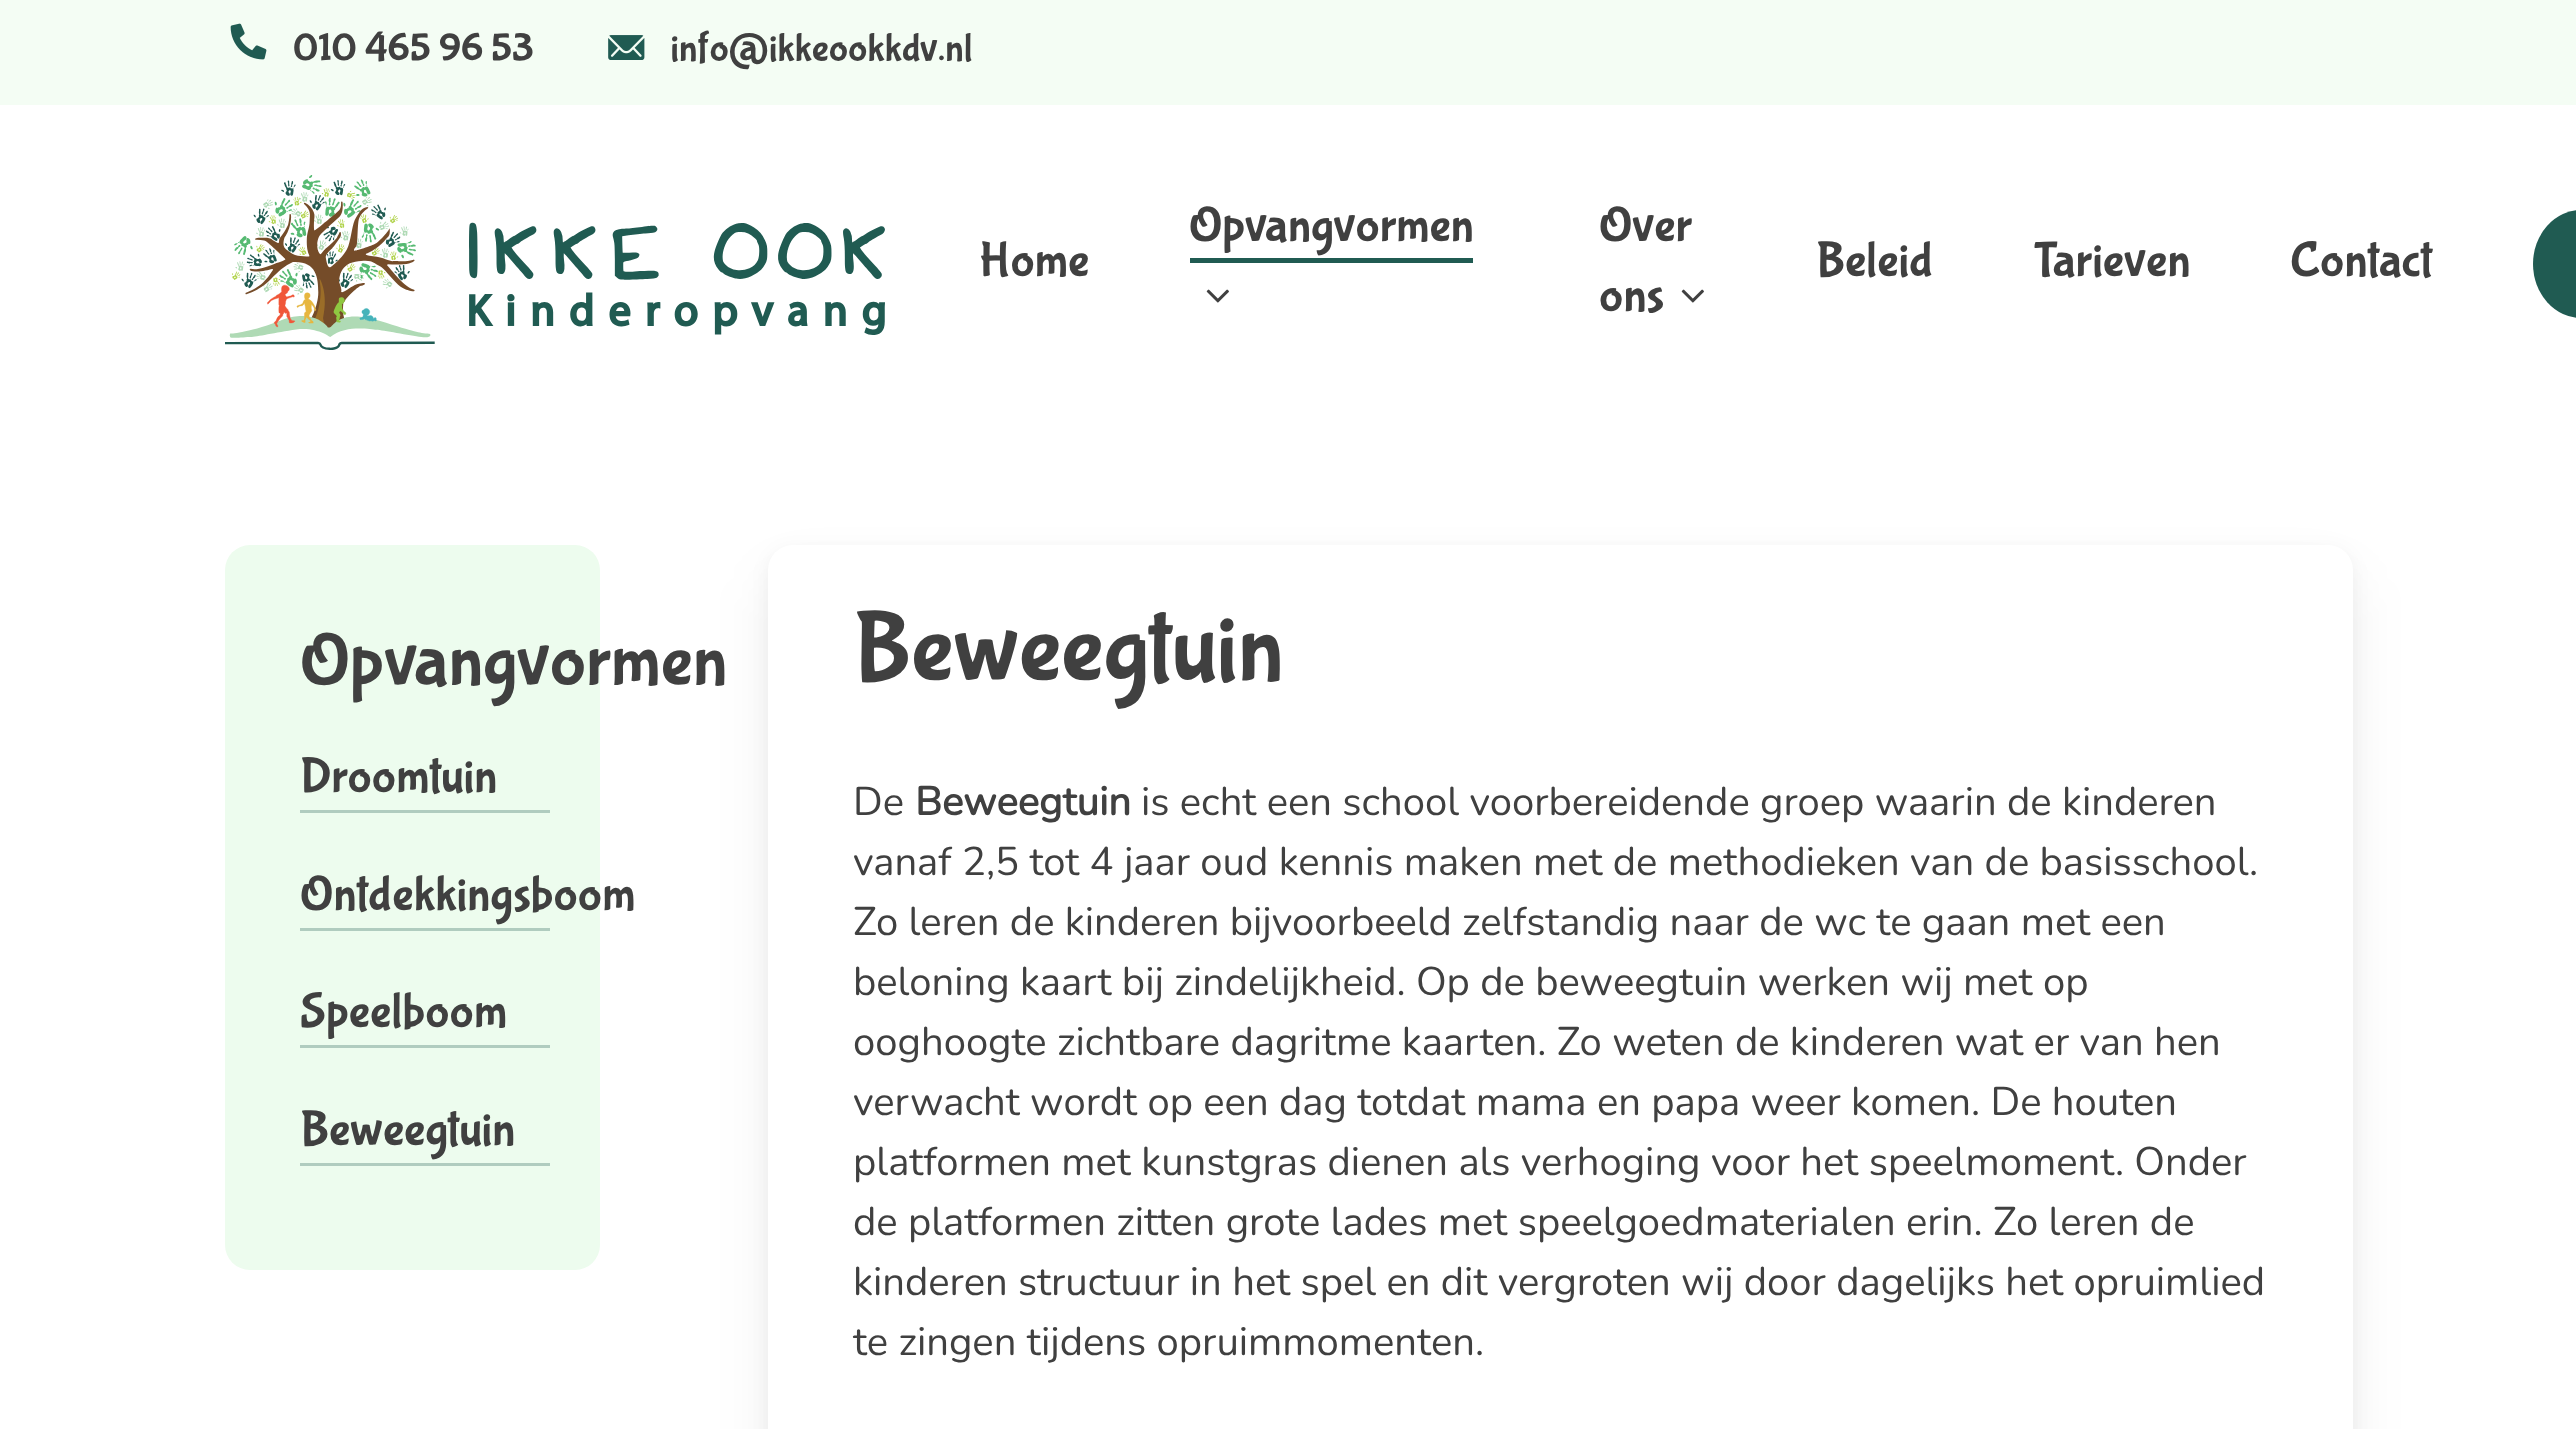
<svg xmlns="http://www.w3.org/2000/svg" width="2576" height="1429">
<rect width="100%" height="100%" fill="#fff"/>
<rect width="2576" height="105" fill="#f4fdf4"/>
<image x="230" y="23" width="37" height="37" href="media/1.png"/>
<text x="293" y="60" style="font-family:Bubblegum Sans;font-size:40px;fill:#404040">010 465 96 53</text>
<image x="608" y="35" width="37" height="25" href="media/2.png"/>
<text x="670" y="60" style="font-family:Bubblegum Sans;font-size:40px;fill:#404040">info@ikkeookkdv.nl</text>
<image x="225" y="175" width="660" height="175" href="media/3.png"/>
<text x="979" y="275" style="font-family:Bubblegum Sans;font-size:50px;fill:#404040">Home</text>
<text x="1189" y="240" style="font-family:Bubblegum Sans;font-size:50px;fill:#404040">Opvangvormen</text>
<rect x="1190" y="258" width="283" height="5" fill="#205b52"/>
<image x="1206" y="289" width="23" height="14" href="media/4.png"/>
<text x="1599" y="240" style="font-family:Bubblegum Sans;font-size:50px;fill:#404040">Over</text>
<text x="1599" y="310" style="font-family:Bubblegum Sans;font-size:50px;fill:#404040">ons</text>
<image x="1681" y="289" width="23" height="14" href="media/4.png"/>
<text x="1816" y="275" style="font-family:Bubblegum Sans;font-size:50px;fill:#404040">Beleid</text>
<text x="2034" y="275" style="font-family:Bubblegum Sans;font-size:50px;fill:#404040">Tarieven</text>
<text x="2290" y="275" style="font-family:Bubblegum Sans;font-size:50px;fill:#404040">Contact</text>
<rect x="2533" y="210" width="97" height="108" rx="54" fill="#205b52"/>
<rect x="225" y="545" width="375" height="725" rx="25" fill="#edfcee"/>
<rect x="768" y="575" width="1585" height="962" rx="25" fill="#0000000f" filter="blur(27.5px)"/>
<text x="300" y="683" style="font-family:Bubblegum Sans;font-size:75px;fill:#404040">Opvangvormen</text>
<rect x="300" y="810" width="250" height="3" fill="#b0ccbf"/>
<text x="300" y="791" style="font-family:Bubblegum Sans;font-size:50px;fill:#404040">Droomtuin</text>
<rect x="300" y="928" width="250" height="3" fill="#b0ccbf"/>
<text x="300" y="909" style="font-family:Bubblegum Sans;font-size:50px;fill:#404040">Ontdekkingsboom</text>
<rect x="300" y="1045" width="250" height="3" fill="#b0ccbf"/>
<text x="300" y="1026" style="font-family:Bubblegum Sans;font-size:50px;fill:#404040">Speelboom</text>
<rect x="300" y="1163" width="250" height="3" fill="#b0ccbf"/>
<text x="300" y="1144" style="font-family:Bubblegum Sans;font-size:50px;fill:#404040">Beweegtuin</text>
<rect x="768" y="550" width="1585" height="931" rx="25" fill="#0000000d" filter="blur(9px)"/>
<rect x="768" y="545" width="1585" height="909" rx="25" fill="#fff"/>
<text x="853" y="678" style="font-family:Bubblegum Sans;font-size:100px;fill:#404040">Beweegtuin</text>
<text x="853" y="815" style="font-family:Nunito;font-size:40px;font-weight:200;fill:#404040">De</text>
<text x="915" y="815" style="font-family:Nunito;font-size:40px;font-weight:bold;fill:#404040">Beweegtuin</text>
<text x="1141" y="815" style="font-family:Nunito;font-size:40px;font-weight:200;fill:#404040">is echt een school voorbereidende groep waarin de kinderen</text>
<text x="853" y="875" style="font-family:Nunito;font-size:40px;font-weight:200;fill:#404040">vanaf 2,5 tot 4 jaar oud kennis maken met de methodieken van de basisschool.</text>
<text x="853" y="935" style="font-family:Nunito;font-size:40px;font-weight:200;fill:#404040">Zo leren de kinderen bijvoorbeeld zelfstandig naar de wc te gaan met een</text>
<text x="853" y="995" style="font-family:Nunito;font-size:40px;font-weight:200;fill:#404040">beloning kaart bij zindelijkheid. Op de beweegtuin werken wij met op</text>
<text x="853" y="1055" style="font-family:Nunito;font-size:40px;font-weight:200;fill:#404040">ooghoogte zichtbare dagritme kaarten. Zo weten de kinderen wat er van hen</text>
<text x="853" y="1115" style="font-family:Nunito;font-size:40px;font-weight:200;fill:#404040">verwacht wordt op een dag totdat mama en papa weer komen. De houten</text>
<text x="853" y="1175" style="font-family:Nunito;font-size:40px;font-weight:200;fill:#404040">platformen met kunstgras dienen als verhoging voor het speelmoment. Onder</text>
<text x="853" y="1235" style="font-family:Nunito;font-size:40px;font-weight:200;fill:#404040">de platformen zitten grote lades met speelgoedmaterialen erin. Zo leren de</text>
<text x="853" y="1295" style="font-family:Nunito;font-size:40px;font-weight:200;fill:#404040">kinderen structuur in het spel en dit vergroten wij door dagelijks het opruimlied</text>
<text x="853" y="1355" style="font-family:Nunito;font-size:40px;font-weight:200;fill:#404040">te zingen tijdens opruimmomenten.</text>
</svg>
